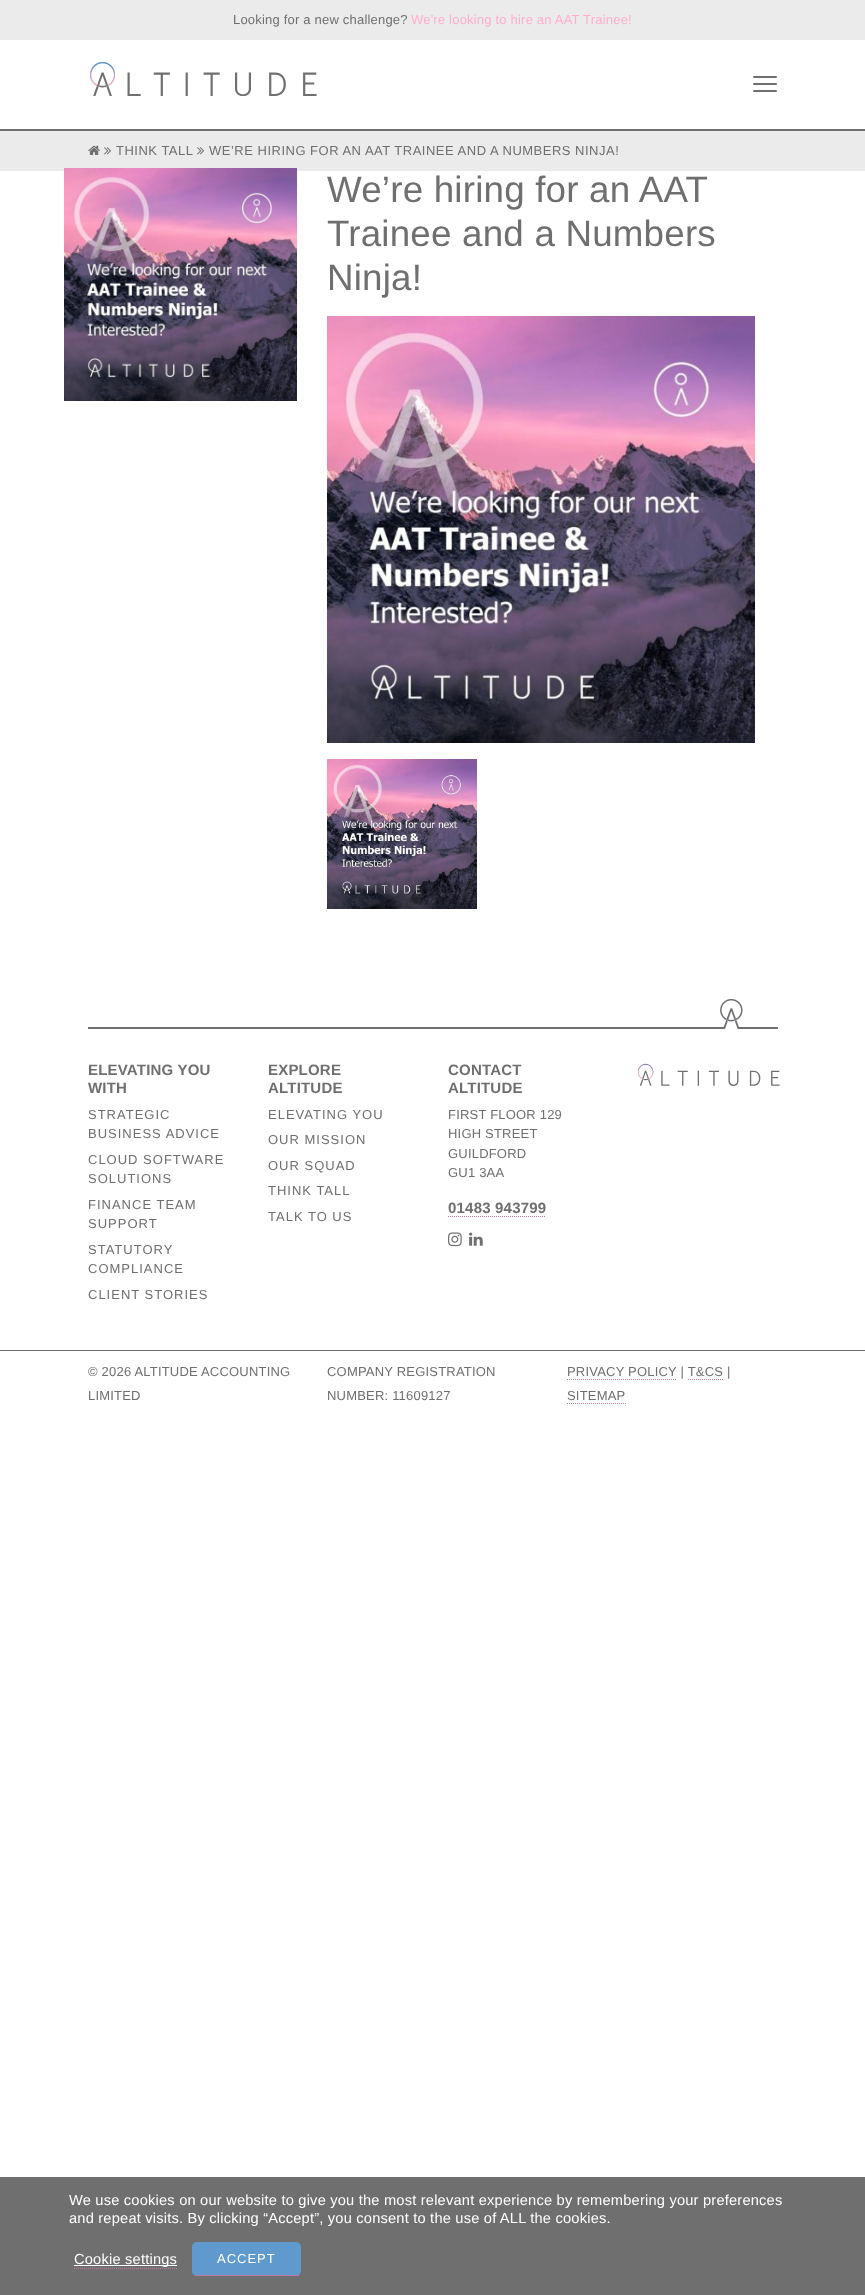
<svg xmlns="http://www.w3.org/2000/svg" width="865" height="2295">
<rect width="100%" height="100%" fill="#fff"/>
<rect y="129" width="865" height="2" fill="#706f6f"/>
<rect width="865" height="40" fill="#ebebeb"/>
<text x="233" y="24" style="font-family:Liberation Sans;font-size:13px;letter-spacing:0.2px;fill:#706f6f">Looking for a new challenge?</text>
<text x="411" y="24" style="font-family:Liberation Sans;font-size:13px;letter-spacing:0.2px;fill:#ffaecf">We're looking to hire an AAT Trainee!</text>
<image x="90" y="62" width="227" height="34" href="media/1.png"/>
<rect x="753" y="76" width="24" height="2" rx="1" fill="#706f6f"/>
<rect x="753" y="83" width="24" height="2" rx="1" fill="#706f6f"/>
<rect x="753" y="90" width="24" height="2" rx="1" fill="#706f6f"/>
<rect y="131" width="865" height="40" fill="#ebebeb"/>
<image x="88" y="145" width="12" height="10" href="media/2.png"/>
<image x="104" y="147" width="7" height="8" href="media/3.png"/>
<text x="116" y="155" style="font-family:Liberation Sans;font-size:13px;letter-spacing:0.5px;fill:#706f6f">THINK TALL</text>
<image x="197" y="147" width="7" height="8" href="media/3.png"/>
<text x="209" y="155" style="font-family:Liberation Sans;font-size:13px;letter-spacing:0.5px;fill:#706f6f">WE’RE HIRING FOR AN AAT TRAINEE AND A NUMBERS NINJA!</text>
<image x="64" y="168" width="233" height="233" href="media/4.png"/>
<text x="327" y="202" style="font-family:Liberation Sans;font-size:36.75px;letter-spacing:0.2px;fill:#706f6f">We’re hiring for an AAT</text>
<text x="327" y="246" style="font-family:Liberation Sans;font-size:36.75px;letter-spacing:0.2px;fill:#706f6f">Trainee and a Numbers</text>
<text x="327" y="290" style="font-family:Liberation Sans;font-size:36.75px;letter-spacing:0.2px;fill:#706f6f">Ninja!</text>
<image x="327" y="316" width="428" height="427" href="media/5.png"/>
<image x="327" y="759" width="150" height="150" href="media/6.png"/>
<rect x="88" y="1027" width="690" height="2" fill="#706f6f"/>
<image x="720" y="998" width="23" height="31" href="media/7.png"/>
<text x="88" y="1075" style="font-family:Liberation Sans;font-size:15px;font-weight:bold;letter-spacing:0.2px;fill:#706f6f">ELEVATING YOU</text>
<text x="88" y="1093" style="font-family:Liberation Sans;font-size:15px;font-weight:bold;letter-spacing:0.2px;fill:#706f6f">WITH</text>
<text x="88" y="1119" style="font-family:Liberation Sans;font-size:13px;letter-spacing:1px;fill:#706f6f">STRATEGIC</text>
<text x="88" y="1138" style="font-family:Liberation Sans;font-size:13px;letter-spacing:1px;fill:#706f6f">BUSINESS ADVICE</text>
<text x="88" y="1164" style="font-family:Liberation Sans;font-size:13px;letter-spacing:1px;fill:#706f6f">CLOUD SOFTWARE</text>
<text x="88" y="1183" style="font-family:Liberation Sans;font-size:13px;letter-spacing:1px;fill:#706f6f">SOLUTIONS</text>
<text x="88" y="1209" style="font-family:Liberation Sans;font-size:13px;letter-spacing:1px;fill:#706f6f">FINANCE TEAM</text>
<text x="88" y="1228" style="font-family:Liberation Sans;font-size:13px;letter-spacing:1px;fill:#706f6f">SUPPORT</text>
<text x="88" y="1254" style="font-family:Liberation Sans;font-size:13px;letter-spacing:1px;fill:#706f6f">STATUTORY</text>
<text x="88" y="1273" style="font-family:Liberation Sans;font-size:13px;letter-spacing:1px;fill:#706f6f">COMPLIANCE</text>
<text x="88" y="1299" style="font-family:Liberation Sans;font-size:13px;letter-spacing:1px;fill:#706f6f">CLIENT STORIES</text>
<text x="268" y="1075" style="font-family:Liberation Sans;font-size:15px;font-weight:bold;letter-spacing:0.2px;fill:#706f6f">EXPLORE</text>
<text x="268" y="1093" style="font-family:Liberation Sans;font-size:15px;font-weight:bold;letter-spacing:0.2px;fill:#706f6f">ALTITUDE</text>
<text x="268" y="1119" style="font-family:Liberation Sans;font-size:13px;letter-spacing:1px;fill:#706f6f">ELEVATING YOU</text>
<text x="268" y="1144" style="font-family:Liberation Sans;font-size:13px;letter-spacing:1px;fill:#706f6f">OUR MISSION</text>
<text x="268" y="1170" style="font-family:Liberation Sans;font-size:13px;letter-spacing:1px;fill:#706f6f">OUR SQUAD</text>
<text x="268" y="1195" style="font-family:Liberation Sans;font-size:13px;letter-spacing:1px;fill:#706f6f">THINK TALL</text>
<text x="268" y="1221" style="font-family:Liberation Sans;font-size:13px;letter-spacing:1px;fill:#706f6f">TALK TO US</text>
<text x="448" y="1075" style="font-family:Liberation Sans;font-size:15px;font-weight:bold;letter-spacing:0.2px;fill:#706f6f">CONTACT</text>
<text x="448" y="1093" style="font-family:Liberation Sans;font-size:15px;font-weight:bold;letter-spacing:0.2px;fill:#706f6f">ALTITUDE</text>
<text x="448" y="1119" style="font-family:Liberation Sans;font-size:13px;letter-spacing:0.2px;fill:#706f6f">FIRST FLOOR 129</text>
<text x="448" y="1138" style="font-family:Liberation Sans;font-size:13px;letter-spacing:0.2px;fill:#706f6f">HIGH STREET</text>
<text x="448" y="1158" style="font-family:Liberation Sans;font-size:13px;letter-spacing:0.2px;fill:#706f6f">GUILDFORD</text>
<text x="448" y="1177" style="font-family:Liberation Sans;font-size:13px;letter-spacing:0.2px;fill:#706f6f">GU1 3AA</text>
<text x="448" y="1213" style="font-family:Liberation Sans;font-size:15px;font-weight:bold;letter-spacing:0.2px;fill:#706f6f">01483 943799</text>
<path d="M448 1216.5h98" fill="none" stroke="#be779f" stroke-dasharray="1 1"/>
<image x="448" y="1232" width="14" height="15" href="media/8.png"/>
<image x="469" y="1232" width="14" height="14" href="media/9.png"/>
<image x="637" y="1063" width="143" height="23" href="media/10.png"/>
<rect y="1350" width="865" height="1" fill="#706f6f"/>
<text x="88" y="1376" style="font-family:Liberation Sans;font-size:13px;letter-spacing:0.2px;fill:#706f6f">© 2026 ALTITUDE ACCOUNTING</text>
<text x="88" y="1400" style="font-family:Liberation Sans;font-size:13px;letter-spacing:0.2px;fill:#706f6f">LIMITED</text>
<text x="327" y="1376" style="font-family:Liberation Sans;font-size:13px;letter-spacing:0.2px;fill:#706f6f">COMPANY REGISTRATION</text>
<text x="327" y="1400" style="font-family:Liberation Sans;font-size:13px;letter-spacing:0.2px;fill:#706f6f">NUMBER: 11609127</text>
<text x="567" y="1376" style="font-family:Liberation Sans;font-size:13px;letter-spacing:0.2px;fill:#706f6f">PRIVACY POLICY | T&amp;CS |</text>
<path d="M567 1379.5h110" fill="none" stroke="#be779f" stroke-dasharray="1 1"/>
<path d="M688 1379.5h36" fill="none" stroke="#be779f" stroke-dasharray="1 1"/>
<text x="567" y="1400" style="font-family:Liberation Sans;font-size:13px;letter-spacing:0.2px;fill:#706f6f">SITEMAP</text>
<path d="M567 1403.5h59" fill="none" stroke="#be779f" stroke-dasharray="1 1"/>
<rect y="2177" width="865" height="118" fill="#706f6f"/>
<text x="69" y="2205" style="font-family:Liberation Sans;font-size:14.65px;letter-spacing:0.2px;fill:#fff">We use cookies on our website to give you the most relevant experience by remembering your preferences</text>
<text x="69" y="2223" style="font-family:Liberation Sans;font-size:14.65px;letter-spacing:0.2px;fill:#fff">and repeat visits. By clicking “Accept”, you consent to the use of ALL the cookies.</text>
<path d="M74 2268.5h103" fill="none" stroke="#be779f" stroke-dasharray="1 1"/>
<rect x="74" y="2265" width="103" height="1" fill="#fff"/>
<text x="74" y="2264" style="font-family:Liberation Sans;font-size:14.65px;letter-spacing:0.2px;fill:#fff">Cookie settings</text>
<rect x="192" y="2242" width="109" height="34" rx="5" fill="#5f99ce"/>
<rect x="195" y="2275" width="104" height="1" fill="#be779f"/>
<text x="217" y="2263" style="font-family:Liberation Sans;font-size:13px;letter-spacing:1px;fill:#fff">ACCEPT</text>
</svg>
